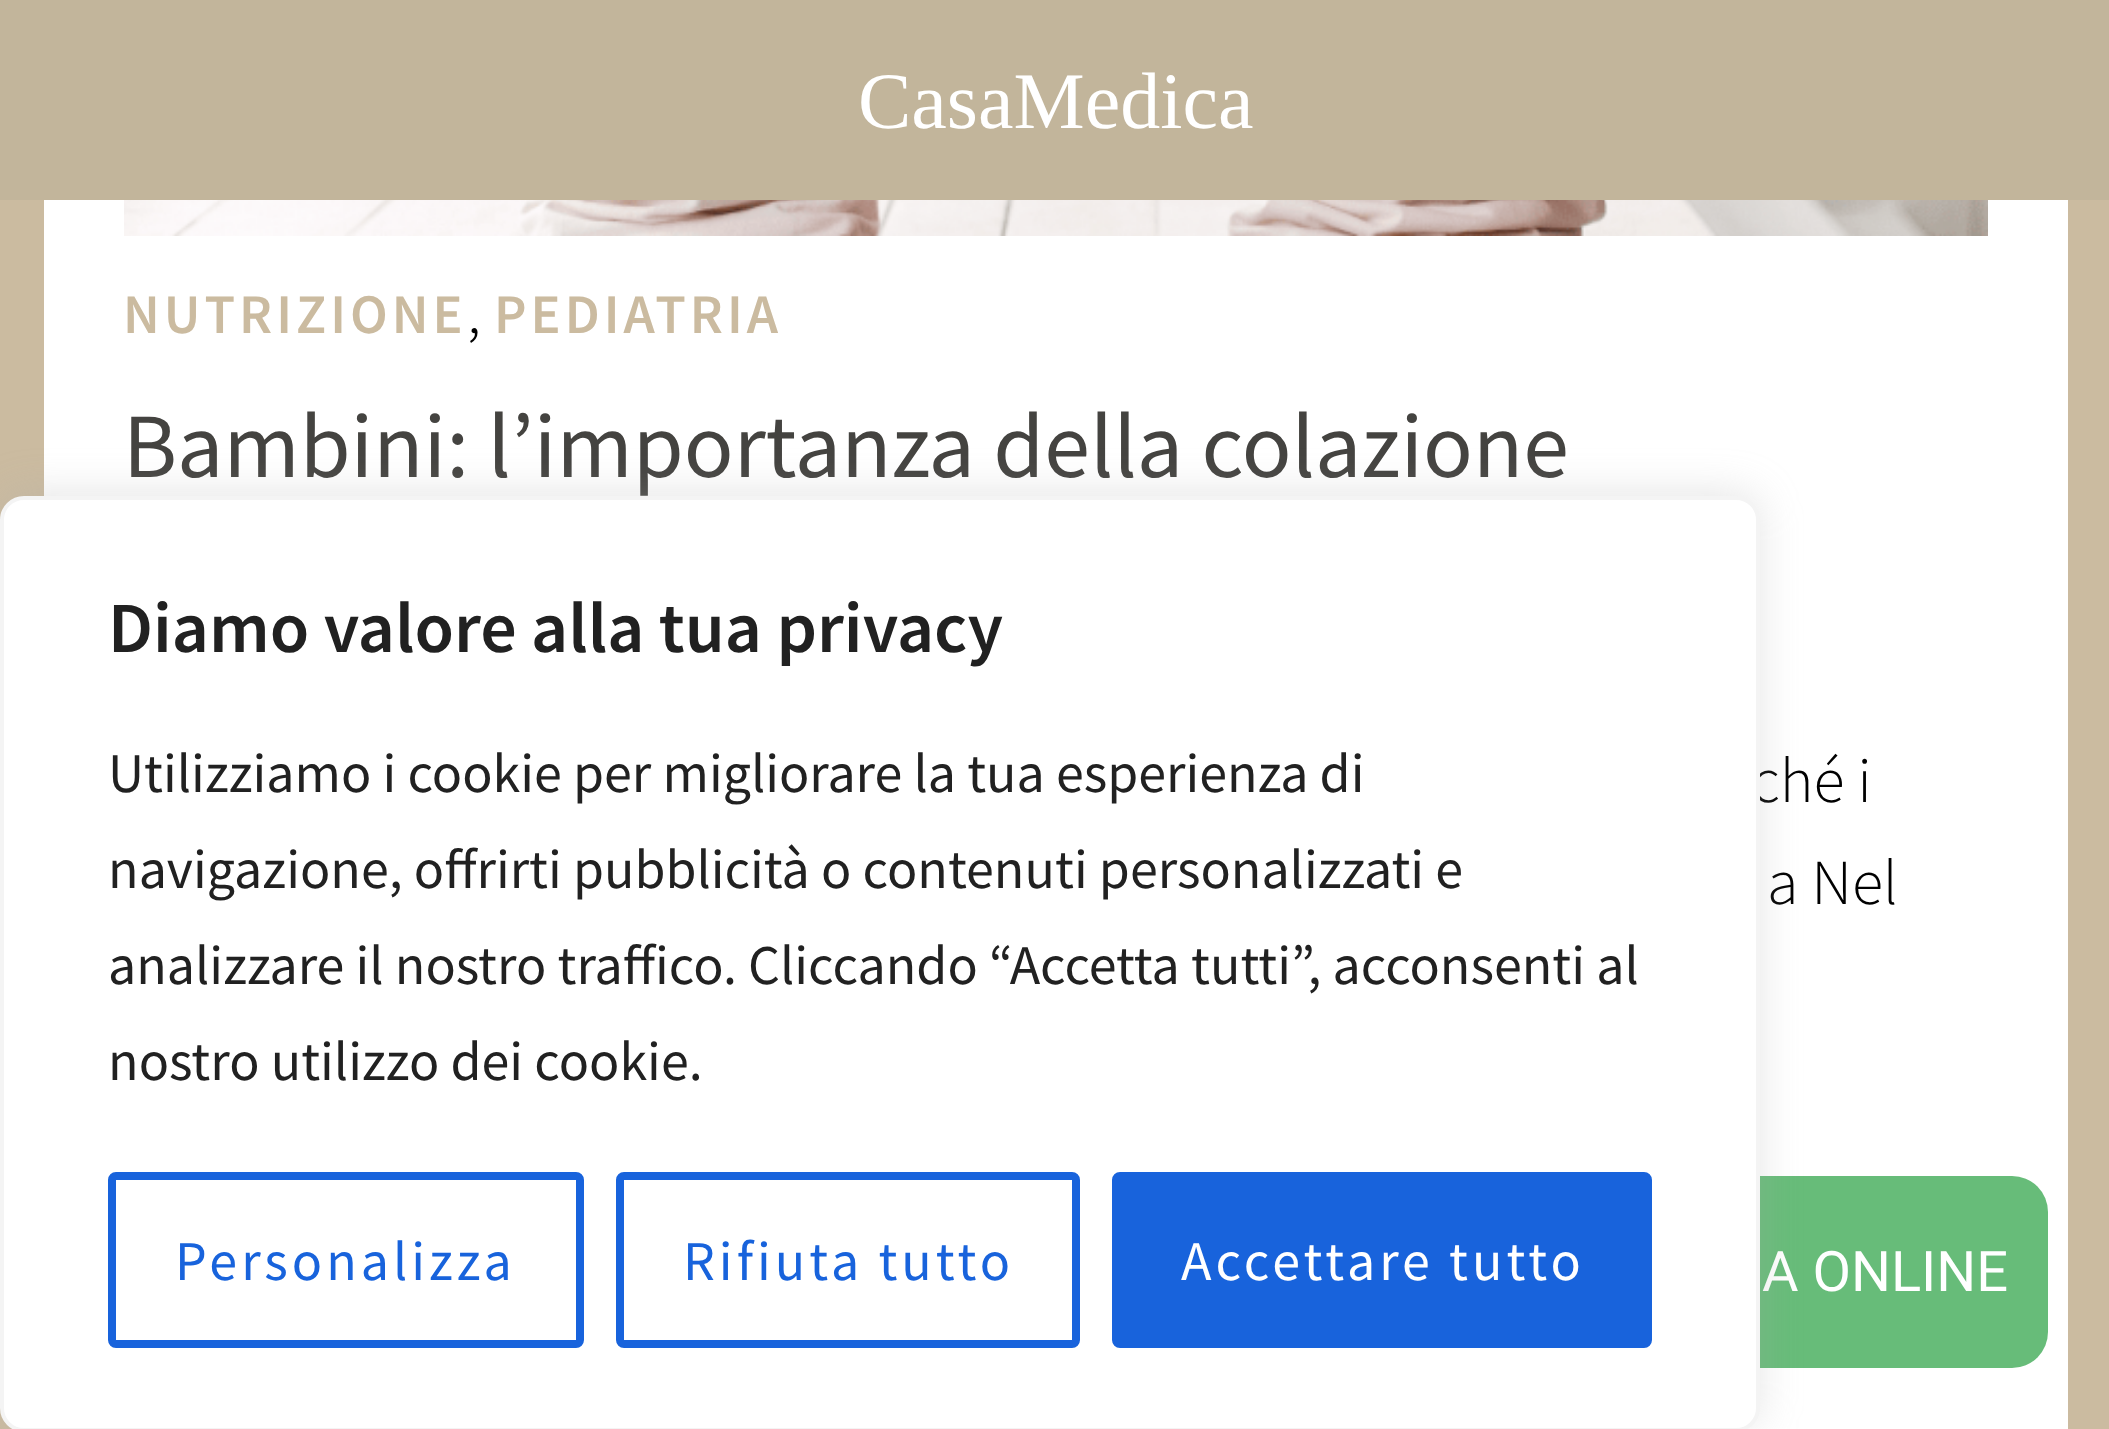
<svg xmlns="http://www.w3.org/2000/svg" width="2109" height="1429">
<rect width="100%" height="100%" fill="#cbbba0"/>
<rect width="2109" height="200" fill="#c2b59b"/>
<text x="858" y="128" style="font-family:Liberation Serif;font-size:80px;fill:#fff">CasaMedica</text>
<rect x="44" y="200" width="2024" height="1229" fill="#fff"/>
<image x="124" y="200" width="1864" height="36" href="media/1.png"/>
<text x="123" y="333" style="font-family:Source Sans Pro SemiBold;font-size:56px;font-weight:600;letter-spacing:4px;fill:#cbbba0">NUTRIZIONE</text>
<text x="494" y="333" style="font-family:Source Sans Pro SemiBold;font-size:56px;font-weight:600;letter-spacing:4px;fill:#cbbba0">PEDIATRIA</text>
<text x="467" y="333" style="font-family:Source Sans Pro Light;font-size:64px;font-weight:300;fill:#000">,</text>
<text x="123" y="477" style="font-family:Source Sans Pro;font-size:92px;fill:#444340">Bambini: l’importanza della colazione</text>
<text x="1751" y="802" style="font-family:Source Sans Pro Light;font-size:64px;font-weight:300;fill:#000">ché i</text>
<text x="1767" y="904" style="font-family:Source Sans Pro Light;font-size:64px;font-weight:300;fill:#000">a Nel</text>
<rect x="1512" y="1176" width="536" height="192" rx="36" fill="#67bc79"/>
<text x="1762" y="1291" style="font-family:Roboto;font-size:56px;fill:#fff">A ONLINE</text>
<rect y="492" width="1760" height="936" rx="24" fill="#acabab4d" filter="blur(20px)"/>
<rect x="2" y="498" width="1756" height="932" rx="22" fill="#fff" stroke="#f4f4f4" stroke-width="4"/>
<text x="108" y="652" style="font-family:Source Sans Pro SemiBold;font-size:72px;font-weight:600;fill:#212121">Diamo valore alla tua privacy</text>
<text x="108" y="792" style="font-family:Source Sans Pro;font-size:56px;fill:#212121">Utilizziamo i cookie per migliorare la tua esperienza di</text>
<text x="108" y="888" style="font-family:Source Sans Pro;font-size:56px;fill:#212121">navigazione, offrirti pubblicità o contenuti personalizzati e</text>
<text x="108" y="984" style="font-family:Source Sans Pro;font-size:56px;fill:#212121">analizzare il nostro traffico. Cliccando “Accetta tutti”, acconsenti al</text>
<text x="108" y="1080" style="font-family:Source Sans Pro;font-size:56px;fill:#212121">nostro utilizzo dei cookie.</text>
<rect x="112" y="1176" width="468" height="168" rx="4" fill="none" stroke="#1863dc" stroke-width="8"/>
<text x="175" y="1280" style="font-family:Source Sans Pro;font-size:56px;letter-spacing:4px;fill:#1863dc">Personalizza</text>
<rect x="620" y="1176" width="456" height="168" rx="4" fill="none" stroke="#1863dc" stroke-width="8"/>
<text x="683" y="1280" style="font-family:Source Sans Pro;font-size:56px;letter-spacing:4px;fill:#1863dc">Rifiuta tutto</text>
<rect x="1116" y="1176" width="532" height="168" rx="4" fill="#1863dc" stroke="#1863dc" stroke-width="8"/>
<text x="1181" y="1280" style="font-family:Source Sans Pro;font-size:56px;letter-spacing:4px;fill:#fff">Accettare tutto</text>
</svg>
